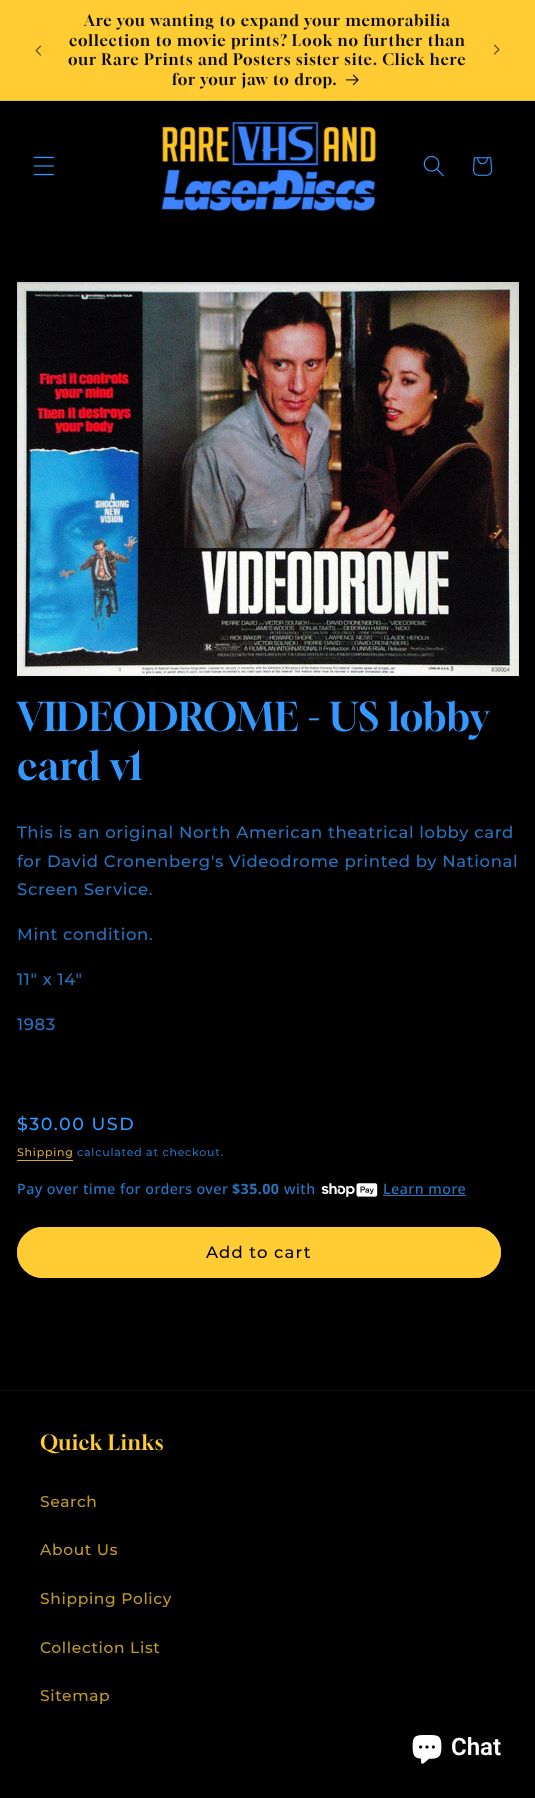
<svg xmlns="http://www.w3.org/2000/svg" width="535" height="1798">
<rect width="100%" height="100%" fill="#000"/>
<rect width="535" height="100" fill="#fc3"/>
<rect y="100" width="535" height="1" fill="#ebbc30"/>
<image x="35" y="45" width="6" height="11" href="media/1.png"/>
<text x="84" y="26" style="font-family:Gloock;font-size:15.6px;letter-spacing:1.1px;fill:#090908">Are you wanting to expand your memorabilia</text>
<text x="69" y="46" style="font-family:Gloock;font-size:15.6px;letter-spacing:1.1px;fill:#090908">collection to movie prints? Look no further than</text>
<text x="68" y="65" style="font-family:Gloock;font-size:15.6px;letter-spacing:1.1px;fill:#090908">our Rare Prints and Posters sister site. Click here</text>
<text x="172" y="85" style="font-family:Gloock;font-size:15.6px;letter-spacing:1.1px;fill:#090908">for your jaw to drop.</text>
<image x="346" y="74" width="13" height="11" href="media/2.png"/>
<image x="494" y="44" width="6" height="11" href="media/3.png"/>
<image x="33" y="156" width="21" height="20" href="media/4.png"/>
<image x="159" y="121" width="218" height="91" href="media/5.png"/>
<image x="423" y="155" width="21" height="22" href="media/6.png"/>
<image x="473" y="157" width="20" height="19" href="media/7.png"/>
<image x="17" y="282" width="502" height="394" href="media/8.png"/>
<text x="17" y="731" style="font-family:Gloock;font-size:39px;letter-spacing:0.75px;fill:#39f">VIDEODROME - US lobby</text>
<text x="17" y="780" style="font-family:Gloock;font-size:39px;letter-spacing:0.75px;fill:#39f">card v1</text>
<text x="17" y="838" style="font-family:Montserrat;font-size:16.5px;font-weight:500;letter-spacing:0.65px;fill:#2673bf">This is an original North American theatrical lobby card</text>
<text x="17" y="867" style="font-family:Montserrat;font-size:16.5px;font-weight:500;letter-spacing:0.65px;fill:#2673bf">for David Cronenberg's Videodrome printed by National</text>
<text x="17" y="895" style="font-family:Montserrat;font-size:16.5px;font-weight:500;letter-spacing:0.65px;fill:#2673bf">Screen Service.</text>
<text x="17" y="940" style="font-family:Montserrat;font-size:16.5px;font-weight:500;letter-spacing:0.65px;fill:#2673bf">Mint condition.</text>
<text x="17" y="985" style="font-family:Montserrat;font-size:16.5px;font-weight:500;letter-spacing:0.65px;fill:#2673bf">11" x 14"</text>
<text x="17" y="1030" style="font-family:Montserrat;font-size:16.5px;font-weight:500;letter-spacing:0.65px;fill:#2673bf">1983</text>
<text x="17" y="1130" style="font-family:Montserrat;font-size:17.5px;font-weight:500;letter-spacing:1.5px;fill:#39f">$30.00 USD</text>
<text x="17" y="1156" style="font-family:Montserrat;font-size:11px;font-weight:500;letter-spacing:0.75px;fill:#d9ad2b">Shipping</text>
<rect x="17" y="1160" width="56" height="1" fill="#d9ad2b"/>
<text x="77" y="1156" style="font-family:Montserrat;font-size:11px;font-weight:500;letter-spacing:0.75px;fill:#2673bf">calculated at checkout.</text>
<text x="17" y="1194" style="font-family:Noto Sans;font-size:14.25px;font-weight:500;letter-spacing:0.45px;fill:#2673bf">Pay over time for orders over</text>
<text x="232" y="1194" style="font-family:Noto Sans;font-size:14.25px;font-weight:bold;letter-spacing:0.45px;fill:#2673bf">$35.00</text>
<text x="284" y="1194" style="font-family:Noto Sans;font-size:14.25px;font-weight:500;letter-spacing:0.45px;fill:#2673bf">with</text>
<image x="321" y="1183" width="57" height="14" href="media/9.png"/>
<text x="383" y="1194" style="font-family:Noto Sans;font-size:14.25px;font-weight:500;letter-spacing:0.45px;fill:#2673bf">Learn more</text>
<rect x="383" y="1195" width="83" height="1" fill="#2673bf"/>
<rect x="17" y="1227" width="484" height="51" rx="25.5" fill="#fc3"/>
<rect x="17.5" y="1227.5" width="483" height="50" rx="25" fill="none" stroke="#fc3"/>
<text x="206" y="1258" style="font-family:Montserrat;font-size:16.5px;font-weight:500;letter-spacing:1.1px;fill:#000">Add to cart</text>
<rect y="1390" width="535" height="1" fill="#141004"/>
<text x="40" y="1450" style="font-family:Gloock;font-size:20.75px;letter-spacing:0.75px;fill:#fc3">Quick Links</text>
<text x="40" y="1507" style="font-family:Montserrat;font-size:15.5px;font-weight:500;letter-spacing:0.65px;fill:#bf9926">Search</text>
<text x="40" y="1555" style="font-family:Montserrat;font-size:15.5px;font-weight:500;letter-spacing:0.65px;fill:#bf9926">About Us</text>
<text x="40" y="1604" style="font-family:Montserrat;font-size:15.5px;font-weight:500;letter-spacing:0.65px;fill:#bf9926">Shipping Policy</text>
<text x="40" y="1653" style="font-family:Montserrat;font-size:15.5px;font-weight:500;letter-spacing:0.65px;fill:#bf9926">Collection List</text>
<text x="40" y="1701" style="font-family:Montserrat;font-size:15.5px;font-weight:500;letter-spacing:0.65px;fill:#bf9926">Sitemap</text>
<image x="412" y="1735" width="30" height="29" href="media/10.png"/>
<text x="451" y="1755" style="font-family:Roboto;font-size:24px;font-weight:600;fill:#fff">Chat</text>
</svg>
